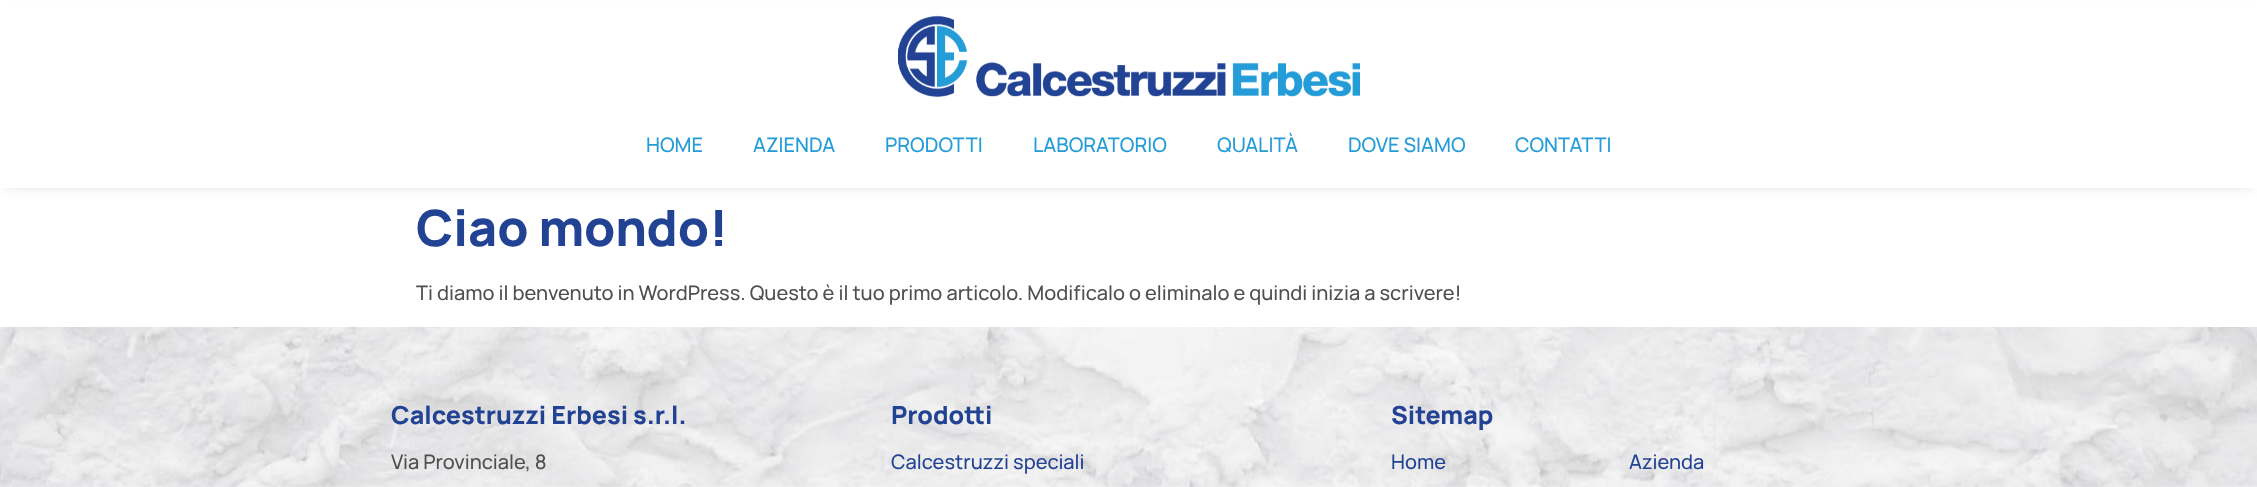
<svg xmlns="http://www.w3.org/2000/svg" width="2257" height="487">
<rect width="100%" height="100%" fill="#fff"/>
<rect x="6" y="13" width="2245" height="175" fill="#0000001a" filter="blur(6px)"/>
<rect y="5" width="2257" height="183" fill="#fff"/>
<image x="898" y="15" width="462" height="82" href="media/1.png"/>
<text x="646" y="152" style="font-family:Manrope;font-size:20px;font-weight:500;fill:#249cd8">HOME</text>
<text x="753" y="152" style="font-family:Manrope;font-size:20px;font-weight:500;fill:#249cd8">AZIENDA</text>
<text x="885" y="152" style="font-family:Manrope;font-size:20px;font-weight:500;fill:#249cd8">PRODOTTI</text>
<text x="1033" y="152" style="font-family:Manrope;font-size:20px;font-weight:500;fill:#249cd8">LABORATORIO</text>
<text x="1217" y="152" style="font-family:Manrope;font-size:20px;font-weight:500;fill:#249cd8">QUALITÀ</text>
<text x="1348" y="152" style="font-family:Manrope;font-size:20px;font-weight:500;fill:#249cd8">DOVE SIAMO</text>
<text x="1515" y="152" style="font-family:Manrope;font-size:20px;font-weight:500;fill:#249cd8">CONTATTI</text>
<text x="416" y="246" style="font-family:Manrope;font-size:50px;font-weight:800;fill:#224394">Ciao mondo!</text>
<text x="416" y="300" style="font-family:Manrope;font-size:20px;font-weight:500;fill:#4f4f4f">Ti diamo il benvenuto in WordPress. Questo è il tuo primo articolo. Modificalo o eliminalo e quindi inizia a scrivere!</text>
<image x="0" y="327" width="2257" height="160" href="media/2.png"/>
<text x="391" y="424" style="font-family:Manrope;font-size:25px;font-weight:800;fill:#224394">Calcestruzzi Erbesi s.r.l.</text>
<text x="391" y="469" style="font-family:Manrope;font-size:20px;font-weight:500;fill:#4f4f4f">Via Provinciale, 8</text>
<text x="891" y="424" style="font-family:Manrope;font-size:25px;font-weight:800;fill:#224394">Prodotti</text>
<text x="891" y="469" style="font-family:Manrope;font-size:20px;font-weight:500;fill:#224394">Calcestruzzi speciali</text>
<text x="1391" y="424" style="font-family:Manrope;font-size:25px;font-weight:800;fill:#224394">Sitemap</text>
<text x="1391" y="469" style="font-family:Manrope;font-size:20px;font-weight:500;fill:#224394">Home</text>
<text x="1629" y="469" style="font-family:Manrope;font-size:20px;font-weight:500;fill:#224394">Azienda</text>
</svg>
